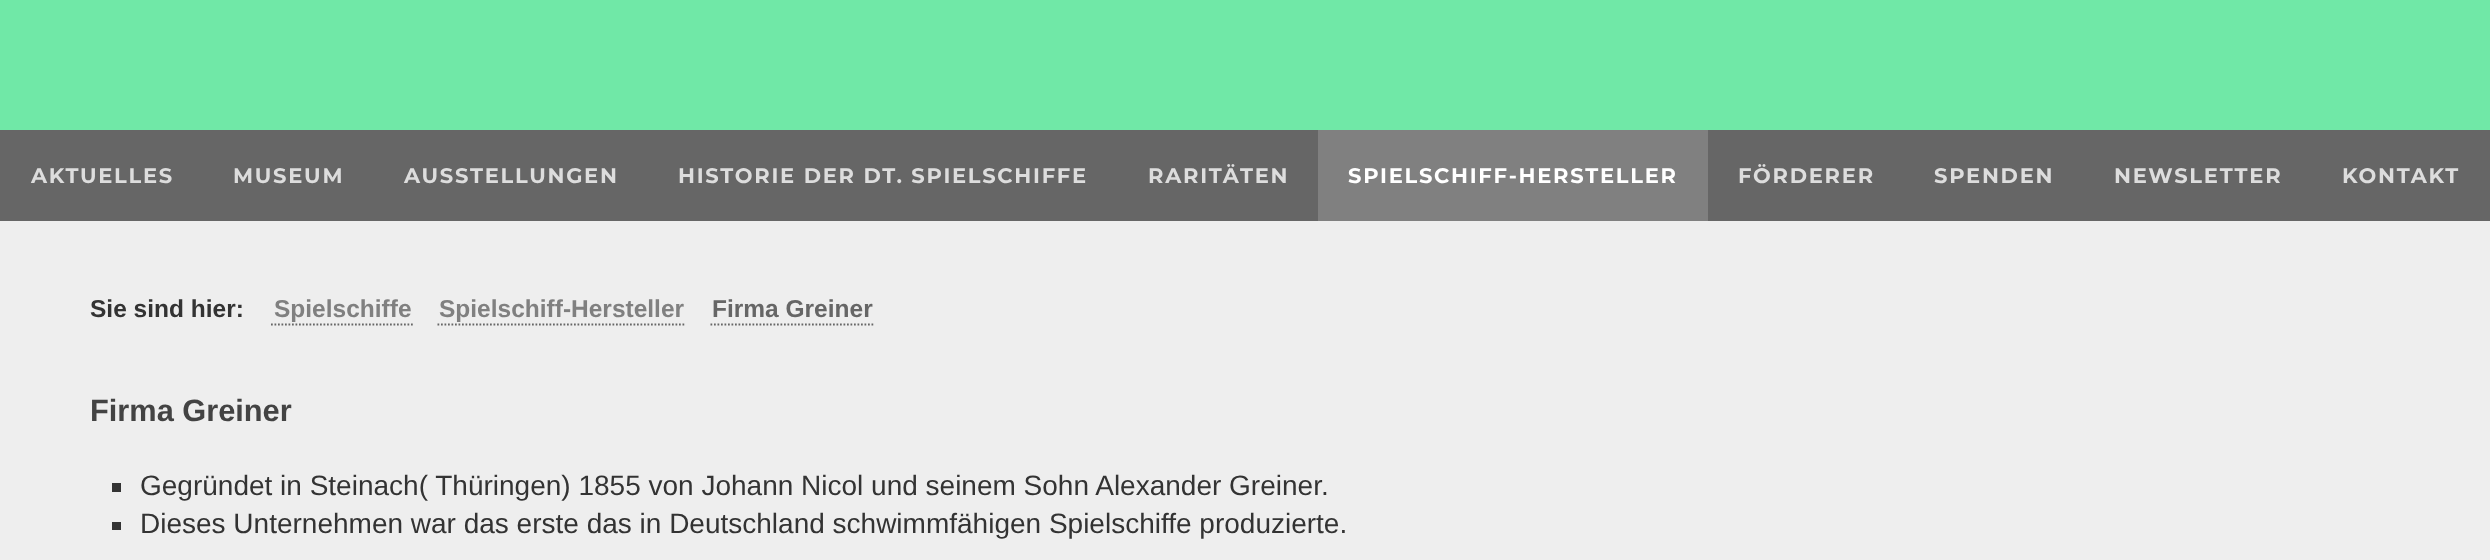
<svg xmlns="http://www.w3.org/2000/svg" width="2490" height="560">
<rect width="100%" height="100%" fill="#70e8a7"/>
<rect y="130" width="2490" height="91" fill="#666"/>
<text x="31" y="183" style="font-family:Montserrat;font-size:21px;font-weight:bold;letter-spacing:1.75px;fill:#ddd">AKTUELLES</text>
<text x="233" y="183" style="font-family:Montserrat;font-size:21px;font-weight:bold;letter-spacing:1.75px;fill:#ddd">MUSEUM</text>
<text x="404" y="183" style="font-family:Montserrat;font-size:21px;font-weight:bold;letter-spacing:1.75px;fill:#ddd">AUSSTELLUNGEN</text>
<text x="678" y="183" style="font-family:Montserrat;font-size:21px;font-weight:bold;letter-spacing:1.75px;fill:#ddd">HISTORIE DER DT. SPIELSCHIFFE</text>
<text x="1148" y="183" style="font-family:Montserrat;font-size:21px;font-weight:bold;letter-spacing:1.75px;fill:#ddd">RARITÄTEN</text>
<rect x="1318" y="130" width="390" height="91" fill="#808080"/>
<text x="1348" y="183" style="font-family:Montserrat;font-size:21px;font-weight:bold;letter-spacing:1.75px;fill:#fff">SPIELSCHIFF-HERSTELLER</text>
<text x="1738" y="183" style="font-family:Montserrat;font-size:21px;font-weight:bold;letter-spacing:1.75px;fill:#ddd">FÖRDERER</text>
<text x="1934" y="183" style="font-family:Montserrat;font-size:21px;font-weight:bold;letter-spacing:1.75px;fill:#ddd">SPENDEN</text>
<text x="2114" y="183" style="font-family:Montserrat;font-size:21px;font-weight:bold;letter-spacing:1.75px;fill:#ddd">NEWSLETTER</text>
<text x="2342" y="183" style="font-family:Montserrat;font-size:21px;font-weight:bold;letter-spacing:1.75px;fill:#ddd">KONTAKT</text>
<rect y="221" width="2490" height="339" fill="#eee"/>
<text x="90" y="317" style="font-family:Liberation Sans;font-size:24.5px;font-weight:bold;fill:#333">Sie sind hier:</text>
<text x="274" y="317" style="font-family:Liberation Sans;font-size:24.5px;font-weight:bold;fill:#808080">Spielschiffe</text>
<path d="M271 324.5h142" fill="none" stroke="#666" stroke-width="1.8" stroke-dasharray="1.75 1.75"/>
<text x="439" y="317" style="font-family:Liberation Sans;font-size:24.5px;font-weight:bold;fill:#808080">Spielschiff-Hersteller</text>
<path d="M437.5 324.5h248.5" fill="none" stroke="#666" stroke-width="1.8" stroke-dasharray="1.75 1.75"/>
<text x="712" y="317" style="font-family:Liberation Sans;font-size:24.5px;font-weight:bold;fill:#666">Firma Greiner</text>
<path d="M710.5 324.5h164.5" fill="none" stroke="#666" stroke-width="1.8" stroke-dasharray="1.75 1.75"/>
<text x="90" y="421" style="font-family:Liberation Sans;font-size:30.75px;font-weight:bold;fill:#434343">Firma Greiner</text>
<rect x="112" y="483" width="9" height="9" fill="#333"/>
<text x="140" y="495" style="font-family:Liberation Sans;font-size:28px;fill:#333">Gegründet in Steinach( Thüringen) 1855 von Johann Nicol und seinem Sohn Alexander Greiner.</text>
<rect x="112" y="522" width="9" height="8" fill="#333"/>
<text x="140" y="533" style="font-family:Liberation Sans;font-size:28px;fill:#333">Dieses Unternehmen war das erste das in Deutschland schwimmfähigen Spielschiffe produzierte.</text>
</svg>
